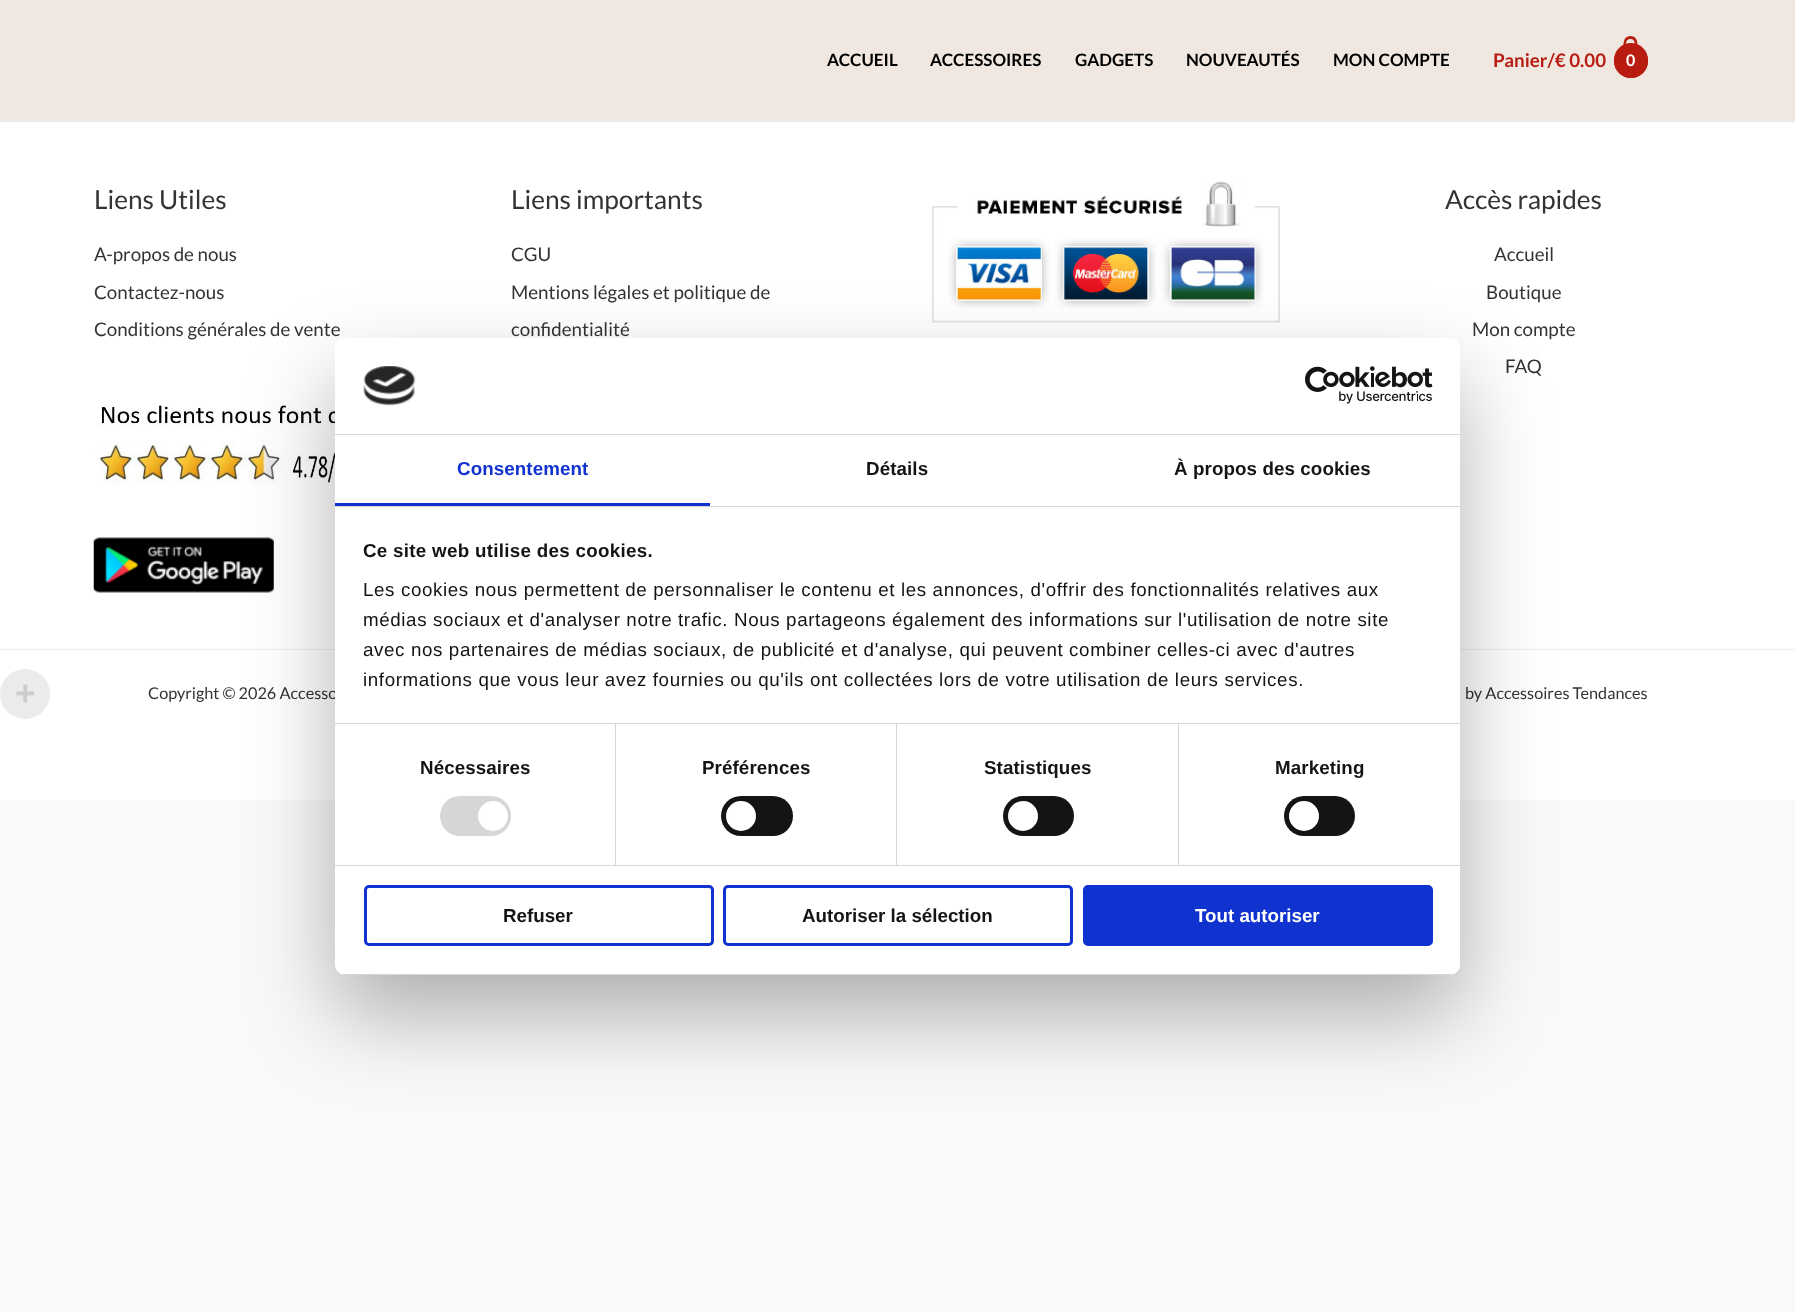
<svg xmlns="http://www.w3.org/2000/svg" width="1795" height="1312">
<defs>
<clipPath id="clip1"><rect x="335" y="338" width="1125" height="637" rx="10"/></clipPath>
</defs>
<rect width="100%" height="100%" fill="#f9f9f9"/>
<rect width="1795" height="120" fill="#f0e8e0"/>
<rect y="120" width="1795" height="1" fill="#f4ebef"/>
<text x="827" y="66" style="font-family:Lato;font-size:17px;font-weight:bold;fill:#000">ACCUEIL</text>
<text x="930" y="66" style="font-family:Lato;font-size:17px;font-weight:bold;fill:#000">ACCESSOIRES</text>
<text x="1075" y="66" style="font-family:Lato;font-size:17px;font-weight:bold;fill:#000">GADGETS</text>
<text x="1186" y="66" style="font-family:Lato;font-size:17px;font-weight:bold;fill:#000">NOUVEAUTÉS</text>
<text x="1333" y="66" style="font-family:Lato;font-size:17px;font-weight:bold;fill:#000">MON COMPTE</text>
<text x="1493" y="67" style="font-family:Lato;font-size:18.75px;font-weight:bold;fill:#b81c11">Panier/€ 0.00</text>
<rect x="1614" y="43" width="34" height="35" rx="17" fill="#b81c11"/>
<circle cx="1631" cy="61" r="15.5" fill="#b81c11" stroke="#b81c11" stroke-width="3"/>
<path d="M1630.5 36c8 0 7 8.5 7 14h-14c0-5.5-1-14 7-14zm0 3c5.5 0 4.5 7.5 4.5 11h-9c0-3.5-1.5-11 4.5-11z" fill="#b81c11" fill-rule="evenodd"/>
<text x="1626" y="66" style="font-family:Lato;font-size:16px;font-weight:bold;fill:#fff">0</text>
<rect y="122" width="1795" height="678" fill="#fff"/>
<rect y="121" width="1795" height="1" fill="#e6e6e6"/>
<text x="94" y="209" style="font-family:Lato;font-size:26.25px;fill:#333">Liens Utiles</text>
<text x="94" y="261" style="font-family:Lato;font-size:18.75px;fill:#333">A-propos de nous</text>
<text x="94" y="299" style="font-family:Lato;font-size:18.75px;fill:#333">Contactez-nous</text>
<text x="94" y="336" style="font-family:Lato;font-size:18.75px;fill:#333">Conditions générales de vente</text>
<image x="94" y="405" width="241" height="80" href="media/1.png"/>
<image x="93" y="537" width="181" height="56" href="media/2.png"/>
<text x="511" y="209" style="font-family:Lato;font-size:26.25px;fill:#333">Liens importants</text>
<text x="511" y="261" style="font-family:Lato;font-size:18.75px;fill:#333">CGU</text>
<text x="511" y="299" style="font-family:Lato;font-size:18.75px;fill:#333">Mentions légales et politique de</text>
<text x="511" y="336" style="font-family:Lato;font-size:18.75px;fill:#333">confidentialité</text>
<image x="931" y="181" width="349" height="142" href="media/3.png"/>
<text x="1445" y="209" style="font-family:Lato;font-size:26.25px;fill:#333">Accès rapides</text>
<text x="1494" y="261" style="font-family:Lato;font-size:18.75px;fill:#333">Accueil</text>
<text x="1486" y="299" style="font-family:Lato;font-size:18.75px;fill:#333">Boutique</text>
<text x="1472" y="336" style="font-family:Lato;font-size:18.75px;fill:#333">Mon compte</text>
<text x="1505" y="373" style="font-family:Lato;font-size:18.75px;fill:#333">FAQ</text>
<rect y="649" width="1795" height="1" fill="#eee"/>
<text x="148" y="699" style="font-family:Lato;font-size:16.25px;fill:#333">Copyright © 2026 Accesso</text>
<text x="1465" y="699" style="font-family:Lato;font-size:16.25px;fill:#333">by Accessoires Tendances</text>
<circle cx="25" cy="694" r="25" fill="#ebebeb"/>
<text x="15" y="705" style="font-family:Liberation Sans;font-size:35px;font-weight:bold;fill:#ccc">+</text>
<rect x="335" y="378" width="1125" height="637" rx="10" fill="#0000004d" filter="blur(42.5px)"/>
<rect x="335" y="338" width="1125" height="637" rx="10" fill="#fff"/>
<rect x="335" y="434" width="1125" height="1" fill="#d6d6d6"/>
<image x="363" y="366" width="53" height="40" href="media/4.png"/>
<image x="1305" y="366" width="128" height="38" href="media/5.png"/>
<rect x="335" y="506" width="1125" height="1" fill="#d6d6d6"/>
<rect x="335" y="503" width="375" height="3" fill="#1032cf"/>
<text x="457" y="475" style="font-family:Liberation Sans;font-size:18.75px;font-weight:bold;letter-spacing:0.1px;fill:#1032cf">Consentement</text>
<text x="866" y="475" style="font-family:Liberation Sans;font-size:18.75px;font-weight:bold;letter-spacing:0.1px;fill:#141414">Détails</text>
<text x="1174" y="475" style="font-family:Liberation Sans;font-size:18.75px;font-weight:bold;letter-spacing:0.1px;fill:#141414">À propos des cookies</text>
<rect x="335" y="723" width="1125" height="1" fill="#d6d6d6"/>
<text x="363" y="557" style="font-family:Liberation Sans;font-size:18.75px;font-weight:bold;letter-spacing:0.3px;fill:#141414">Ce site web utilise des cookies.</text>
<text x="363" y="596" style="font-family:Liberation Sans;font-size:18.75px;letter-spacing:0.62px;fill:#141414">Les cookies nous permettent de personnaliser le contenu et les annonces, d'offrir des fonctionnalités relatives aux</text>
<text x="363" y="626" style="font-family:Liberation Sans;font-size:18.75px;letter-spacing:0.62px;fill:#141414">médias sociaux et d'analyser notre trafic. Nous partageons également des informations sur l'utilisation de notre site</text>
<text x="363" y="656" style="font-family:Liberation Sans;font-size:18.75px;letter-spacing:0.62px;fill:#141414">avec nos partenaires de médias sociaux, de publicité et d'analyse, qui peuvent combiner celles-ci avec d'autres</text>
<text x="363" y="686" style="font-family:Liberation Sans;font-size:18.75px;letter-spacing:0.62px;fill:#141414">informations que vous leur avez fournies ou qu'ils ont collectées lors de votre utilisation de leurs services.</text>
<rect x="335" y="865" width="1125" height="1" fill="#d6d6d6"/>
<rect x="615" y="724" width="1" height="141" fill="#d6d6d6"/>
<text x="420" y="774" style="font-family:Liberation Sans;font-size:18.75px;font-weight:bold;letter-spacing:0.1px;fill:#141414">Nécessaires</text>
<rect x="440" y="796" width="71" height="40" rx="20" fill="#d6d6d6"/>
<circle cx="493" cy="816" r="15" fill="#fff"/>
<rect x="896" y="724" width="1" height="141" fill="#d6d6d6"/>
<text x="702" y="774" style="font-family:Liberation Sans;font-size:18.75px;font-weight:bold;letter-spacing:0.1px;fill:#141414">Préférences</text>
<rect x="721" y="796" width="72" height="40" rx="20" fill="#141414"/>
<circle cx="741" cy="816" r="15" fill="#fff"/>
<rect x="1178" y="724" width="1" height="141" fill="#d6d6d6"/>
<text x="984" y="774" style="font-family:Liberation Sans;font-size:18.75px;font-weight:bold;letter-spacing:0.1px;fill:#141414">Statistiques</text>
<rect x="1003" y="796" width="71" height="40" rx="20" fill="#141414"/>
<circle cx="1023" cy="816" r="15" fill="#fff"/>
<text x="1275" y="774" style="font-family:Liberation Sans;font-size:18.75px;font-weight:bold;letter-spacing:0.1px;fill:#141414">Marketing</text>
<rect x="1284" y="796" width="71" height="40" rx="20" fill="#141414"/>
<circle cx="1304" cy="816" r="15" fill="#fff"/>
<g clip-path="url(#clip1)">
<rect x="335" y="974" width="1125" height="1" fill="#d6d6d6"/>
</g>
<rect x="365.5" y="886.5" width="347" height="58" rx="3.5" fill="none" stroke="#1032cf" stroke-width="3"/>
<text x="503" y="922" style="font-family:Liberation Sans;font-size:18.75px;font-weight:bold;fill:#141414">Refuser</text>
<rect x="724.5" y="886.5" width="347" height="58" rx="3.5" fill="none" stroke="#1032cf" stroke-width="3"/>
<text x="802" y="922" style="font-family:Liberation Sans;font-size:18.75px;font-weight:bold;fill:#141414">Autoriser la sélection</text>
<rect x="1084.5" y="886.5" width="347" height="58" rx="3.5" fill="#1032cf" stroke="#1032cf" stroke-width="3"/>
<text x="1195" y="922" style="font-family:Liberation Sans;font-size:18.75px;font-weight:bold;fill:#fff">Tout autoriser</text>
</svg>
